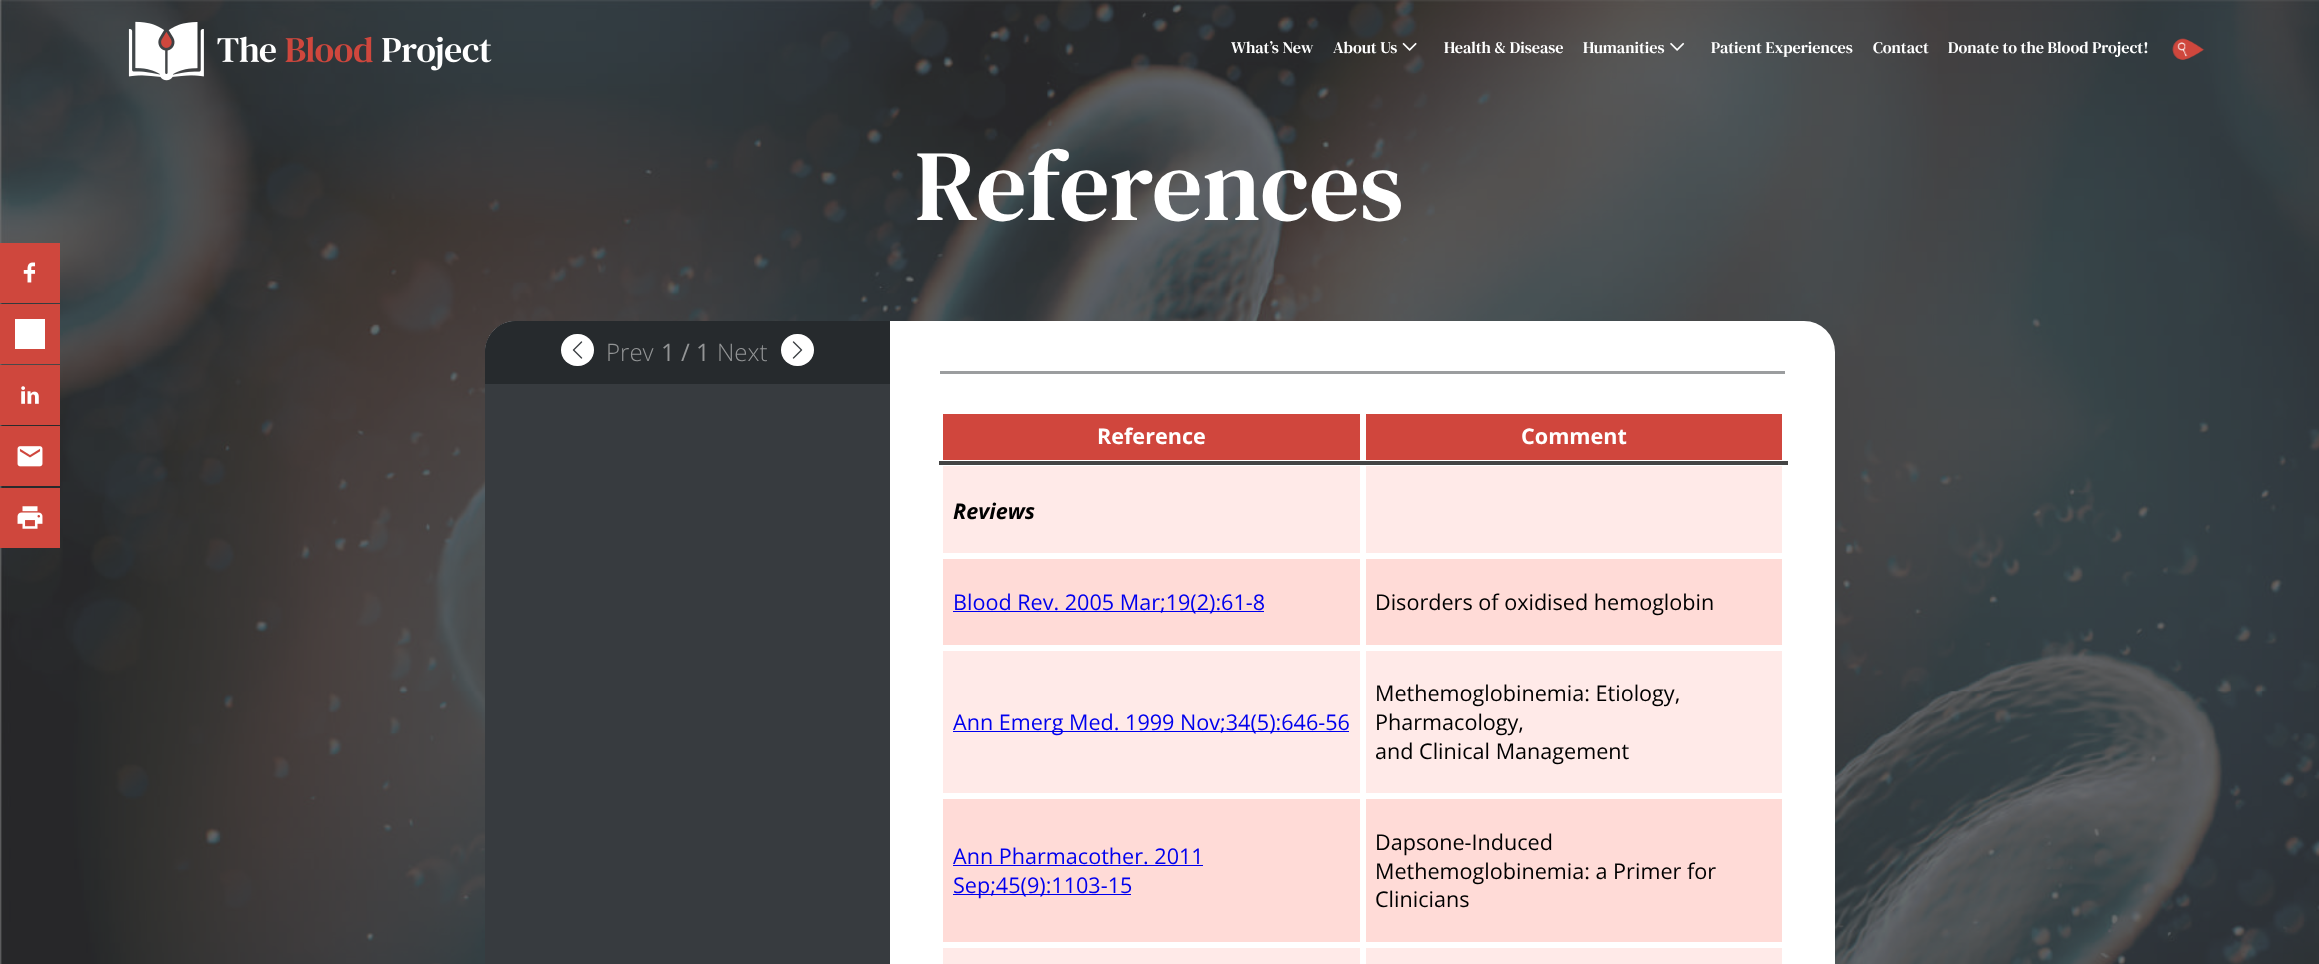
<svg xmlns="http://www.w3.org/2000/svg" width="2319" height="964">
<rect width="100%" height="100%" fill="#fff"/>
<image x="0" y="0" width="2319" height="964" href="media/5.png"/>
<rect y="243" width="60" height="60" fill="#cf473d"/>
<image x="23" y="262" width="13" height="21" href="media/1.png"/>
<rect y="304" width="60" height="60" fill="#cf473d"/>
<rect x="15" y="319" width="30" height="30" fill="#fff"/>
<rect y="365" width="60" height="60" fill="#cf473d"/>
<image x="21" y="386" width="18" height="18" href="media/2.png"/>
<rect y="426" width="60" height="60" fill="#cf473d"/>
<image x="17" y="446" width="26" height="21" href="media/3.png"/>
<rect y="488" width="60" height="60" fill="#cf473d"/>
<image x="17" y="506" width="26" height="23" href="media/4.png"/>
<image x="128" y="21" width="364" height="60" href="media/6.png"/>
<text x="1231" y="53" style="font-family:DM Serif Text;font-size:16.25px;fill:#fff">What’s New</text>
<text x="1333" y="53" style="font-family:DM Serif Text;font-size:16.25px;fill:#fff">About Us</text>
<image x="1402" y="42" width="15" height="9" href="media/7.png"/>
<text x="1444" y="53" style="font-family:DM Serif Text;font-size:16.25px;fill:#fff">Health &amp; Disease</text>
<text x="1583" y="53" style="font-family:DM Serif Text;font-size:16.25px;fill:#fff">Humanities</text>
<image x="1670" y="42" width="15" height="9" href="media/8.png"/>
<text x="1711" y="53" style="font-family:DM Serif Text;font-size:16.25px;fill:#fff">Patient Experiences</text>
<text x="1873" y="53" style="font-family:DM Serif Text;font-size:16.25px;fill:#fff">Contact</text>
<text x="1948" y="53" style="font-family:DM Serif Text;font-size:16.25px;fill:#fff">Donate to the Blood Project!</text>
<image x="2172" y="38" width="33" height="22" href="media/9.png"/>
<text x="915" y="220" style="font-family:DM Serif Text;font-size:100.5px;fill:#fff">References</text>
<rect x="485" y="321" width="1350" height="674" rx="31" fill="#fff"/>
<path d="M516 321h374v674h-374c-17 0-31-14-31-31v-612c0-17 14-31 31-31z" fill="#373b3f"/>
<path d="M516 321h374v63h-405v-32c0-17 14-31 31-31z" fill="#262a2d"/>
<rect x="561" y="334" width="33" height="32" rx="16" fill="#fff"/>
<image x="572" y="341" width="11" height="18" href="media/10.png"/>
<text x="606" y="361" style="font-family:Open Sans;font-size:24px;font-weight:300;fill:#939596">Prev</text>
<text x="661" y="361" style="font-family:Open Sans;font-size:24px;fill:#939596">1 / 1</text>
<text x="717" y="361" style="font-family:Open Sans;font-size:24px;font-weight:300;fill:#939596">Next</text>
<rect x="781" y="334" width="33" height="32" rx="16" fill="#fff"/>
<image x="792" y="341" width="11" height="18" href="media/11.png"/>
<rect x="940" y="371" width="845" height="3" fill="#9b9d9f"/>
<rect x="943" y="466" width="839" height="87" fill="#ffeae8"/>
<rect x="941.5" y="464.5" width="420" height="90" fill="none" stroke="#fff" stroke-width="3"/>
<rect x="1364.5" y="464.5" width="419" height="90" fill="none" stroke="#fff" stroke-width="3"/>
<rect x="939" y="461" width="849" height="4" fill="#444"/>
<rect x="943" y="414" width="417" height="46" fill="#d0463d"/>
<text x="1097" y="444" style="font-family:Open Sans;font-size:21.6px;font-weight:bold;fill:#fff">Reference</text>
<rect x="1366" y="414" width="416" height="46" fill="#d0463d"/>
<text x="1521" y="444" style="font-family:Open Sans;font-size:21.6px;font-weight:bold;fill:#fff">Comment</text>
<text x="953" y="519" style="font-family:Open Sans;font-size:21.6px;font-weight:bold;font-style:italic;fill:#000">Reviews</text>
<rect x="943" y="559" width="839" height="86" fill="#ffdbd7"/>
<rect x="941.5" y="557.5" width="420" height="89" fill="none" stroke="#fff" stroke-width="3"/>
<rect x="953" y="611" width="311" height="1" fill="#00e"/>
<text x="953" y="610" style="font-family:Open Sans;font-size:21.6px;fill:#00e">Blood Rev. 2005 Mar;19(2):61-8</text>
<rect x="1364.5" y="557.5" width="419" height="89" fill="none" stroke="#fff" stroke-width="3"/>
<text x="1375" y="610" style="font-family:Open Sans;font-size:21.6px;fill:#000">Disorders of oxidised hemoglobin</text>
<rect x="943" y="651" width="839" height="142" fill="#ffeae8"/>
<rect x="941.5" y="649.5" width="420" height="145" fill="none" stroke="#fff" stroke-width="3"/>
<rect x="953" y="731" width="396" height="1" fill="#00e"/>
<text x="953" y="730" style="font-family:Open Sans;font-size:21.6px;fill:#00e">Ann Emerg Med. 1999 Nov;34(5):646-56</text>
<rect x="1364.5" y="649.5" width="419" height="145" fill="none" stroke="#fff" stroke-width="3"/>
<text x="1375" y="701" style="font-family:Open Sans;font-size:21.6px;fill:#000">Methemoglobinemia: Etiology,</text>
<text x="1375" y="730" style="font-family:Open Sans;font-size:21.6px;fill:#000">Pharmacology,</text>
<text x="1375" y="759" style="font-family:Open Sans;font-size:21.6px;fill:#000">and Clinical Management</text>
<rect x="943" y="799" width="839" height="143" fill="#ffdbd7"/>
<rect x="941.5" y="797.5" width="420" height="146" fill="none" stroke="#fff" stroke-width="3"/>
<text x="953" y="864" style="font-family:Open Sans;font-size:21.6px;fill:#00e">Ann Pharmacother. 2011</text>
<rect x="953" y="865" width="250" height="1" fill="#00e"/>
<rect x="953" y="894" width="178" height="1" fill="#00e"/>
<text x="953" y="893" style="font-family:Open Sans;font-size:21.6px;fill:#00e">Sep;45(9):1103-15</text>
<rect x="1364.5" y="797.5" width="419" height="146" fill="none" stroke="#fff" stroke-width="3"/>
<text x="1375" y="850" style="font-family:Open Sans;font-size:21.6px;fill:#000">Dapsone-Induced</text>
<text x="1375" y="879" style="font-family:Open Sans;font-size:21.6px;fill:#000">Methemoglobinemia: a Primer for</text>
<text x="1375" y="907" style="font-family:Open Sans;font-size:21.6px;fill:#000">Clinicians</text>
<rect x="943" y="948" width="839" height="16" fill="#ffeae8"/>
<rect x="941.5" y="946.5" width="420" height="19" fill="none" stroke="#fff" stroke-width="3"/>
<rect x="1364.5" y="946.5" width="419" height="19" fill="none" stroke="#fff" stroke-width="3"/>
</svg>
